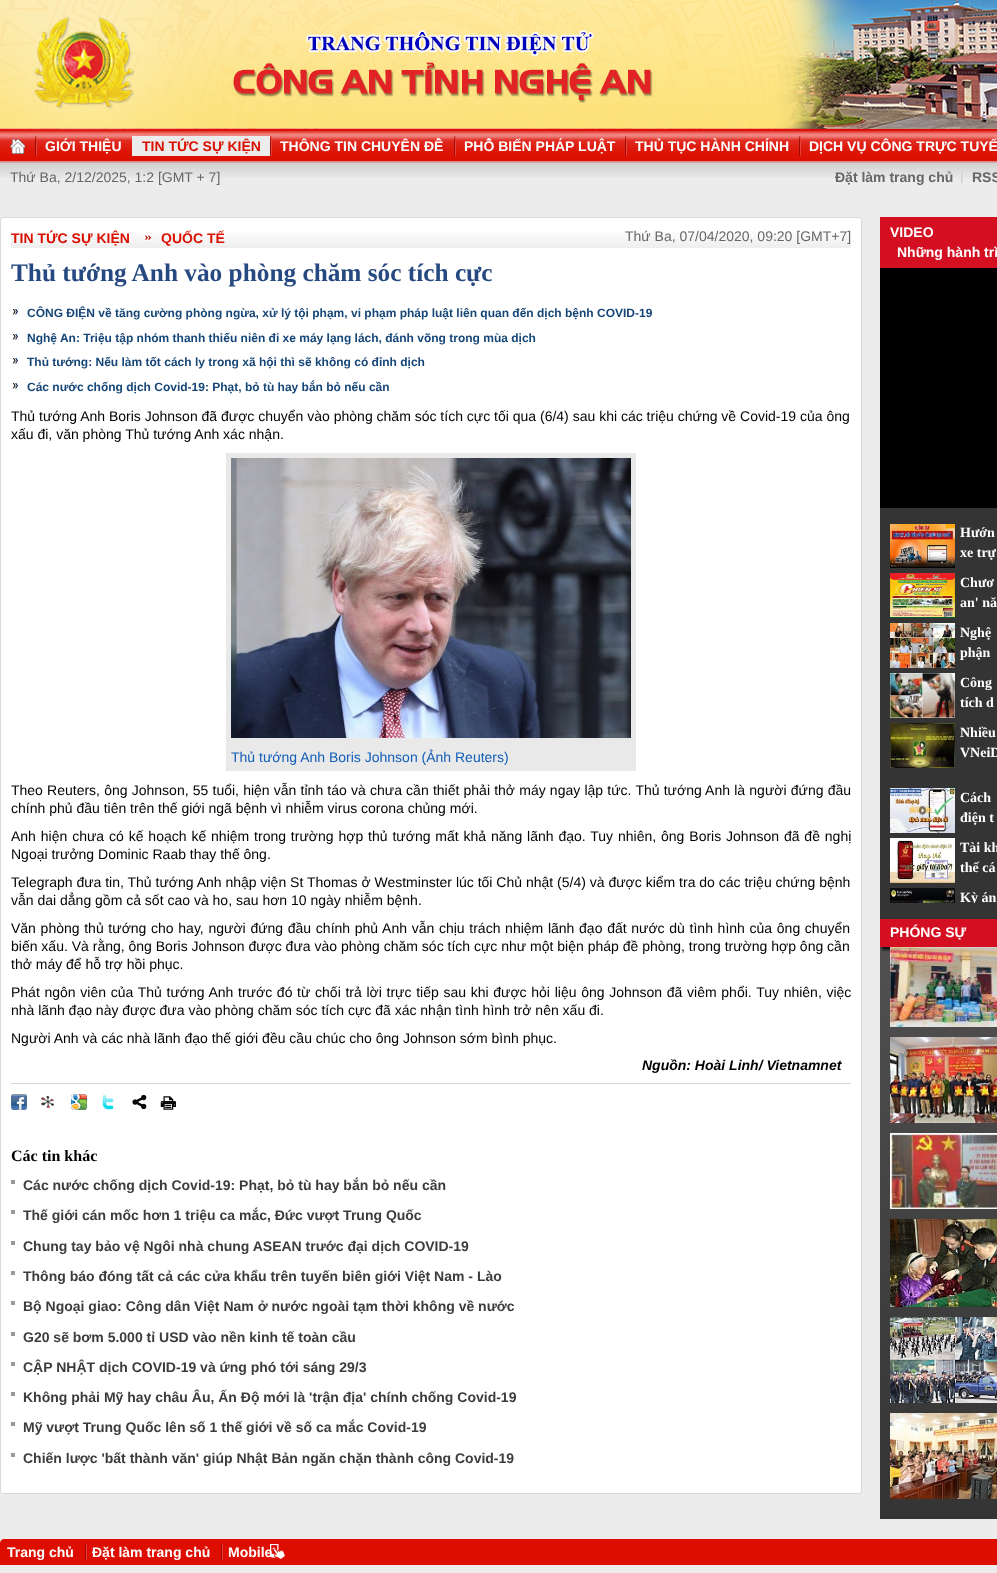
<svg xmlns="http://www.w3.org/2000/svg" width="997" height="1573">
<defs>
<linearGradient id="g1" gradientUnits="userSpaceOnUse" x1="431" y1="228" x2="431" y2="248"><stop offset="0" stop-color="#fff"/><stop offset="1" stop-color="#eee"/></linearGradient>
<linearGradient id="g2" gradientUnits="userSpaceOnUse" x1="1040" y1="917" x2="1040" y2="1519"><stop offset="0" stop-color="#535152"/><stop offset="1" stop-color="#343434"/></linearGradient>
</defs>
<rect width="100%" height="100%" fill="#ececec"/>
<image x="0" y="0" width="997" height="130" href="media/1.png"/>
<image x="0" y="130" width="997" height="32" href="media/2.png"/>
<rect y="162" width="997" height="1" fill="#d1a8a6"/>
<image x="10" y="139" width="15" height="15" href="media/3.png"/>
<image x="35" y="136" width="2" height="20" href="media/4.png"/>
<text x="45" y="151" style="font-family:Liberation Sans;font-size:14px;font-weight:bold;fill:#fff">GIỚI THIỆU</text>
<rect x="132" y="136" width="138" height="20" fill="#ececec"/>
<text x="142" y="151" style="font-family:Liberation Sans;font-size:14px;font-weight:bold;fill:#da0f00">TIN TỨC SỰ KIỆN</text>
<image x="270" y="136" width="2" height="20" href="media/4.png"/>
<text x="280" y="151" style="font-family:Liberation Sans;font-size:14px;font-weight:bold;fill:#fff">THÔNG TIN CHUYÊN ĐỀ</text>
<image x="454" y="136" width="2" height="20" href="media/4.png"/>
<text x="464" y="151" style="font-family:Liberation Sans;font-size:14px;font-weight:bold;fill:#fff">PHỔ BIẾN PHÁP LUẬT</text>
<image x="625" y="136" width="2" height="20" href="media/4.png"/>
<text x="635" y="151" style="font-family:Liberation Sans;font-size:14px;font-weight:bold;fill:#fff">THỦ TỤC HÀNH CHÍNH</text>
<image x="799" y="136" width="2" height="20" href="media/4.png"/>
<text x="809" y="151" style="font-family:Liberation Sans;font-size:14px;font-weight:bold;fill:#fff">DỊCH VỤ CÔNG TRỰC TUYẾ</text>
<image x="0" y="163" width="997" height="15" href="media/5.png"/>
<text x="10" y="182" style="font-family:Liberation Sans;font-size:14px;fill:#666">Thứ Ba, 2/12/2025, 1:2 [GMT + 7]</text>
<text x="835" y="182" style="font-family:Liberation Sans;font-size:14px;font-weight:bold;fill:#666">Đặt làm trang chủ</text>
<image x="961" y="172" width="2" height="11" href="media/6.png"/>
<text x="972" y="182" style="font-family:Liberation Sans;font-size:14px;font-weight:bold;fill:#666">RSS</text>
<rect x="0.5" y="217.5" width="861" height="1276" rx="2.5" fill="#fff" stroke="#dcd8d9"/>
<rect x="11" y="231" width="840" height="17" fill="url(#g1)"/>
<text x="11" y="243" style="font-family:Liberation Sans;font-size:14px;font-weight:bold;fill:#da0f00">TIN TỨC SỰ KIỆN</text>
<image x="144" y="234" width="7" height="7" href="media/7.png"/>
<text x="161" y="243" style="font-family:Liberation Sans;font-size:14px;font-weight:bold;fill:#da0f00">QUỐC TẾ</text>
<text x="625" y="241" style="font-family:Liberation Sans;font-size:14px;fill:#666">Thứ Ba, 07/04/2020, 09:20 [GMT+7]</text>
<text x="11" y="281" style="font-family:Liberation Serif;font-size:25.3px;font-weight:bold;fill:#264981">Thủ tướng Anh vào phòng chăm sóc tích cực</text>
<image x="12" y="309" width="6" height="6" href="media/8.png"/>
<text x="27" y="317" style="font-family:Liberation Sans;font-size:12px;font-weight:bold;fill:#164677">CÔNG ĐIỆN về tăng cường phòng ngừa, xử lý tội phạm, vi phạm pháp luật liên quan đến dịch bệnh COVID-19</text>
<image x="12" y="334" width="6" height="6" href="media/8.png"/>
<text x="27" y="342" style="font-family:Liberation Sans;font-size:12px;font-weight:bold;fill:#164677">Nghệ An: Triệu tập nhóm thanh thiếu niên đi xe máy lạng lách, đánh võng trong mùa dịch</text>
<image x="12" y="358" width="6" height="6" href="media/8.png"/>
<text x="27" y="366" style="font-family:Liberation Sans;font-size:12px;font-weight:bold;fill:#164677">Thủ tướng: Nếu làm tốt cách ly trong xã hội thì sẽ không có đỉnh dịch</text>
<image x="12" y="383" width="6" height="6" href="media/8.png"/>
<text x="27" y="391" style="font-family:Liberation Sans;font-size:12px;font-weight:bold;fill:#164677">Các nước chống dịch Covid-19: Phạt, bỏ tù hay bắn bỏ nếu cần</text>
<text x="11" y="421" style="font-family:Liberation Sans;font-size:14px;fill:#000">Thủ tướng Anh Boris Johnson đã được chuyển vào phòng chăm sóc tích cực tối qua (6/4) sau khi các triệu chứng về Covid-19 của ông</text>
<text x="11" y="439" style="font-family:Liberation Sans;font-size:14px;fill:#000">xấu đi, văn phòng Thủ tướng Anh xác nhận.</text>
<rect x="226" y="453" width="410" height="318" fill="#e9e9e9"/>
<image x="231" y="458" width="400" height="280" href="media/9.png"/>
<text x="231" y="762" style="font-family:Liberation Sans;font-size:14px;fill:#135eb9">Thủ tướng Anh Boris Johnson (Ảnh Reuters)</text>
<text x="11" y="795" word-spacing="0.3" style="font-family:Liberation Sans;font-size:14px;fill:#000">Theo Reuters, ông Johnson, 55 tuổi, hiện vẫn tỉnh táo và chưa cần thiết phải thở máy ngay lập tức. Thủ tướng Anh là người đứng đầu</text>
<text x="11" y="813" style="font-family:Liberation Sans;font-size:14px;fill:#000">chính phủ đầu tiên trên thế giới ngã bệnh vì nhiễm virus corona chủng mới.</text>
<text x="11" y="841" word-spacing="1" style="font-family:Liberation Sans;font-size:14px;fill:#000">Anh hiện chưa có kế hoạch kế nhiệm trong trường hợp thủ tướng mất khả năng lãnh đạo. Tuy nhiên, ông Boris Johnson đã đề nghị</text>
<text x="11" y="859" style="font-family:Liberation Sans;font-size:14px;fill:#000">Ngoại trưởng Dominic Raab thay thế ông.</text>
<text x="11" y="887" style="font-family:Liberation Sans;font-size:14px;fill:#000">Telegraph đưa tin, Thủ tướng Anh nhập viện St Thomas ở Westminster lúc tối Chủ nhật (5/4) và được kiểm tra do các triệu chứng bệnh</text>
<text x="11" y="905" style="font-family:Liberation Sans;font-size:14px;fill:#000">vẫn dai dẳng gồm cả sốt cao và ho, sau hơn 10 ngày nhiễm bệnh.</text>
<text x="11" y="933" word-spacing="0.8" style="font-family:Liberation Sans;font-size:14px;fill:#000">Văn phòng thủ tướng cho hay, người đứng đầu chính phủ Anh vẫn chịu trách nhiệm lãnh đạo đất nước dù tình hình của ông chuyển</text>
<text x="11" y="951" style="font-family:Liberation Sans;font-size:14px;fill:#000">biến xấu. Và rằng, ông Boris Johnson được đưa vào phòng chăm sóc tích cực như một biện pháp đề phòng, trong trường hợp ông cần</text>
<text x="11" y="969" style="font-family:Liberation Sans;font-size:14px;fill:#000">thở máy để hỗ trợ hồi phục.</text>
<text x="11" y="997" word-spacing="0.8" style="font-family:Liberation Sans;font-size:14px;fill:#000">Phát ngôn viên của Thủ tướng Anh trước đó từ chối trả lời trực tiếp sau khi được hỏi liệu ông Johnson đã viêm phổi. Tuy nhiên, việc</text>
<text x="11" y="1015" style="font-family:Liberation Sans;font-size:14px;fill:#000">nhà lãnh đạo này được đưa vào phòng chăm sóc tích cực đã xác nhận tình hình trở nên xấu đi.</text>
<text x="11" y="1043" style="font-family:Liberation Sans;font-size:14px;fill:#000">Người Anh và các nhà lãnh đạo thế giới đều cầu chúc cho ông Johnson sớm bình phục.</text>
<text x="642" y="1070" style="font-family:Liberation Sans;font-size:14px;font-weight:bold;font-style:italic;fill:#000">Nguồn: Hoài Linh/ Vietnamnet</text>
<rect x="11" y="1083" width="840" height="1" fill="#d7d6dc"/>
<image x="11" y="1094" width="16" height="16" href="media/10.png"/>
<image x="41" y="1096" width="13" height="12" href="media/11.png"/>
<image x="71" y="1094" width="16" height="16" href="media/12.png"/>
<image x="102" y="1094" width="12" height="16" href="media/13.png"/>
<image x="132" y="1095" width="15" height="14" href="media/14.png"/>
<image x="160" y="1096" width="16" height="14" href="media/15.png"/>
<text x="11" y="1161" style="font-family:Liberation Serif;font-size:16px;font-weight:bold;fill:#000">Các tin khác</text>
<rect x="11" y="1180" width="4" height="4" fill="#999"/>
<text x="23" y="1190" style="font-family:Liberation Sans;font-size:14px;font-weight:bold;fill:#3d3c3c">Các nước chống dịch Covid-19: Phạt, bỏ tù hay bắn bỏ nếu cần</text>
<rect x="11" y="1210" width="4" height="4" fill="#999"/>
<text x="23" y="1220" style="font-family:Liberation Sans;font-size:14px;font-weight:bold;fill:#3d3c3c">Thế giới cán mốc hơn 1 triệu ca mắc, Đức vượt Trung Quốc</text>
<rect x="11" y="1241" width="4" height="4" fill="#999"/>
<text x="23" y="1251" style="font-family:Liberation Sans;font-size:14px;font-weight:bold;fill:#3d3c3c">Chung tay bảo vệ Ngôi nhà chung ASEAN trước đại dịch COVID-19</text>
<rect x="11" y="1271" width="4" height="4" fill="#999"/>
<text x="23" y="1281" style="font-family:Liberation Sans;font-size:14px;font-weight:bold;fill:#3d3c3c">Thông báo đóng tất cả các cửa khẩu trên tuyến biên giới Việt Nam - Lào</text>
<rect x="11" y="1301" width="4" height="4" fill="#999"/>
<text x="23" y="1311" style="font-family:Liberation Sans;font-size:14px;font-weight:bold;fill:#3d3c3c">Bộ Ngoại giao: Công dân Việt Nam ở nước ngoài tạm thời không về nước</text>
<rect x="11" y="1332" width="4" height="4" fill="#999"/>
<text x="23" y="1342" style="font-family:Liberation Sans;font-size:14px;font-weight:bold;fill:#3d3c3c">G20 sẽ bơm 5.000 tỉ USD vào nền kinh tế toàn cầu</text>
<rect x="11" y="1362" width="4" height="4" fill="#999"/>
<text x="23" y="1372" style="font-family:Liberation Sans;font-size:14px;font-weight:bold;fill:#3d3c3c">CẬP NHẬT dịch COVID-19 và ứng phó tới sáng 29/3</text>
<rect x="11" y="1392" width="4" height="4" fill="#999"/>
<text x="23" y="1402" style="font-family:Liberation Sans;font-size:14px;font-weight:bold;fill:#3d3c3c">Không phải Mỹ hay châu Âu, Ấn Độ mới là 'trận địa' chính chống Covid-19</text>
<rect x="11" y="1422" width="4" height="4" fill="#999"/>
<text x="23" y="1432" style="font-family:Liberation Sans;font-size:14px;font-weight:bold;fill:#3d3c3c">Mỹ vượt Trung Quốc lên số 1 thế giới về số ca mắc Covid-19</text>
<rect x="11" y="1453" width="4" height="4" fill="#999"/>
<text x="23" y="1463" style="font-family:Liberation Sans;font-size:14px;font-weight:bold;fill:#3d3c3c">Chiến lược 'bất thành văn' giúp Nhật Bản ngăn chặn thành công Covid-19</text>
<rect x="880" y="217" width="117" height="51" fill="#d40f21"/>
<text x="890" y="237" style="font-family:Liberation Sans;font-size:14px;font-weight:bold;fill:#fff">VIDEO</text>
<text x="897" y="257" style="font-family:Liberation Sans;font-size:14px;font-weight:bold;fill:#fff">Những hành trì</text>
<rect x="880" y="268" width="117" height="240" fill="#000"/>
<rect x="880" y="947" width="117" height="572" fill="url(#g2)"/>
<rect x="882" y="920" width="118" height="30" fill="#141414" filter="blur(1px)"/>
<rect x="880" y="508" width="117" height="411" fill="#343434"/>
<image x="890" y="524" width="65" height="44" href="media/16.png"/>
<text x="960" y="537" style="font-family:Liberation Serif;font-size:14px;font-weight:bold;fill:#fff">Hướn</text>
<text x="960" y="557" style="font-family:Liberation Serif;font-size:14px;font-weight:bold;fill:#fff">xe trự</text>
<image x="890" y="573" width="65" height="45" href="media/17.png"/>
<text x="960" y="587" style="font-family:Liberation Serif;font-size:14px;font-weight:bold;fill:#fff">Chươ</text>
<text x="960" y="607" style="font-family:Liberation Serif;font-size:14px;font-weight:bold;fill:#fff">an' nă</text>
<image x="890" y="623" width="65" height="45" href="media/18.png"/>
<text x="960" y="637" style="font-family:Liberation Serif;font-size:14px;font-weight:bold;fill:#fff">Nghệ</text>
<text x="960" y="657" style="font-family:Liberation Serif;font-size:14px;font-weight:bold;fill:#fff">phận</text>
<image x="890" y="673" width="65" height="45" href="media/19.png"/>
<text x="960" y="687" style="font-family:Liberation Serif;font-size:14px;font-weight:bold;fill:#fff">Công</text>
<text x="960" y="707" style="font-family:Liberation Serif;font-size:14px;font-weight:bold;fill:#fff">tích d</text>
<image x="890" y="723" width="65" height="45" href="media/20.png"/>
<text x="960" y="737" style="font-family:Liberation Serif;font-size:14px;font-weight:bold;fill:#fff">Nhiều</text>
<text x="960" y="757" style="font-family:Liberation Serif;font-size:14px;font-weight:bold;fill:#fff">VNeiD</text>
<image x="890" y="788" width="65" height="45" href="media/21.png"/>
<text x="960" y="802" style="font-family:Liberation Serif;font-size:14px;font-weight:bold;fill:#fff">Cách</text>
<text x="960" y="822" style="font-family:Liberation Serif;font-size:14px;font-weight:bold;fill:#fff">điện t</text>
<image x="890" y="838" width="65" height="45" href="media/22.png"/>
<text x="960" y="852" style="font-family:Liberation Serif;font-size:14px;font-weight:bold;fill:#fff">Tài kh</text>
<text x="960" y="872" style="font-family:Liberation Serif;font-size:14px;font-weight:bold;fill:#fff">thế cá</text>
<image x="890" y="888" width="65" height="15" href="media/23.png"/>
<text x="960" y="902" style="font-family:Liberation Serif;font-size:14px;font-weight:bold;fill:#fff">Kỳ án</text>
<rect x="971" y="903" width="4" height="2" fill="#343434"/>
<rect x="880" y="919" width="117" height="28" fill="#d40f21"/>
<text x="890" y="937" style="font-family:Liberation Sans;font-size:14px;font-weight:bold;fill:#fff">PHÓNG SỰ</text>
<image x="890" y="947" width="107" height="80" href="media/24.png"/>
<image x="890" y="1037" width="107" height="86" href="media/25.png"/>
<image x="890" y="1133" width="107" height="76" href="media/26.png"/>
<image x="890" y="1219" width="107" height="88" href="media/27.png"/>
<image x="890" y="1317" width="107" height="86" href="media/28.png"/>
<image x="890" y="1413" width="107" height="86" href="media/29.png"/>
<path d="M4 1539h993c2 0 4 2 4 4v22h-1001v-22c0-2 2-4 4-4z" fill="#dd0d00"/>
<text x="7" y="1557" style="font-family:Liberation Sans;font-size:14px;font-weight:bold;fill:#fff">Trang chủ</text>
<image x="85" y="1544" width="2" height="16" href="media/30.png"/>
<text x="92" y="1557" style="font-family:Liberation Sans;font-size:14px;font-weight:bold;fill:#fff">Đặt làm trang chủ</text>
<image x="221" y="1544" width="2" height="16" href="media/30.png"/>
<image x="270" y="1544" width="15" height="15" href="media/31.png"/>
<text x="228" y="1557" style="font-family:Liberation Sans;font-size:14px;font-weight:bold;fill:#fff">Mobile</text>
</svg>
